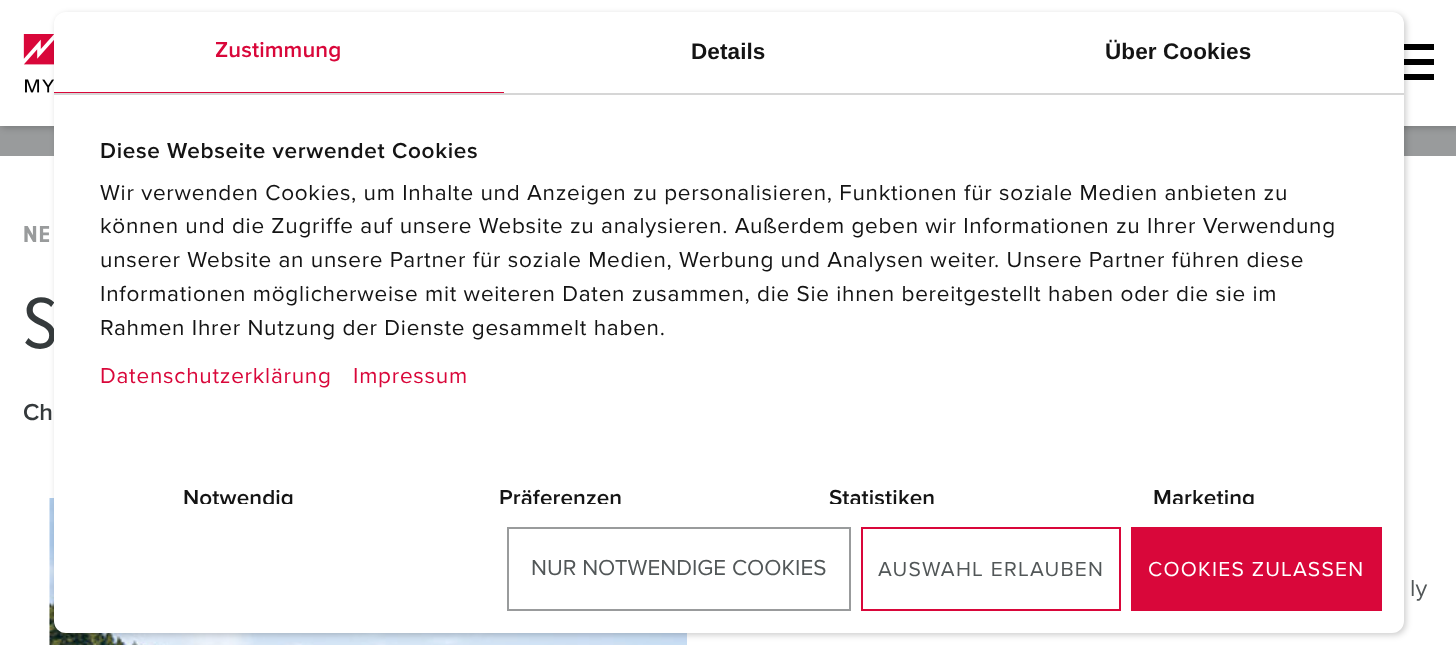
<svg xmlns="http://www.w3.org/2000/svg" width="1456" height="645">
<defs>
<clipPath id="clip1"><rect x="54" y="95" width="1350" height="409"/></clipPath>
</defs>
<rect width="100%" height="100%" fill="#fff"/>
<rect y="126" width="1456" height="30" fill="#999b9c"/>
<rect x="2" y="2" width="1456" height="126" fill="#00000033" filter="blur(3px)"/>
<rect width="1456" height="126" fill="#fff"/>
<image x="23" y="34" width="31" height="59" href="media/1.png"/>
<rect x="1404" y="59" width="30" height="6" fill="#000"/>
<rect x="1404" y="44" width="30" height="6" fill="#000"/>
<rect x="1404" y="74" width="30" height="6" fill="#000"/>
<image x="49" y="498" width="638" height="147" href="media/2.png"/>
<rect x="56" y="14" width="1350" height="621" rx="12" fill="#00000033" filter="blur(3px)"/>
<text x="23" y="348" style="font-family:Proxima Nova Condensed;font-size:75px;fill:#353a3c">S</text>
<rect x="54" y="12" width="1350" height="621" rx="12" fill="#fff"/>
<rect x="54" y="93" width="1350" height="2" fill="#d6d6d6"/>
<rect x="54" y="92" width="450" height="1" fill="#d9073a"/>
<text x="215" y="57" style="font-family:Proxima Nova;font-size:22.5px;font-weight:600;letter-spacing:0.1px;fill:#d9073a">Zustimmung</text>
<text x="691" y="59" style="font-family:Liberation Sans;font-size:22.5px;font-weight:bold;letter-spacing:0.1px;fill:#141414">Details</text>
<text x="1105" y="59" style="font-family:Liberation Sans;font-size:22.5px;font-weight:bold;letter-spacing:0.1px;fill:#141414">Über Cookies</text>
<text x="100" y="158" style="font-family:Proxima Nova;font-size:22.5px;font-weight:600;letter-spacing:0.7px;fill:#141414">Diese Webseite verwendet Cookies</text>
<text x="100" y="200" style="font-family:Proxima Nova;font-size:22.5px;letter-spacing:0.75px;fill:#141414">Wir verwenden Cookies, um Inhalte und Anzeigen zu personalisieren, Funktionen für soziale Medien anbieten zu</text>
<text x="100" y="233" style="font-family:Proxima Nova;font-size:22.5px;letter-spacing:0.75px;fill:#141414">können und die Zugriffe auf unsere Website zu analysieren. Außerdem geben wir Informationen zu Ihrer Verwendung</text>
<text x="100" y="267" style="font-family:Proxima Nova;font-size:22.5px;letter-spacing:0.75px;fill:#141414">unserer Website an unsere Partner für soziale Medien, Werbung und Analysen weiter. Unsere Partner führen diese</text>
<text x="100" y="301" style="font-family:Proxima Nova;font-size:22.5px;letter-spacing:0.75px;fill:#141414">Informationen möglicherweise mit weiteren Daten zusammen, die Sie ihnen bereitgestellt haben oder die sie im</text>
<text x="100" y="335" style="font-family:Proxima Nova;font-size:22.5px;letter-spacing:0.75px;fill:#141414">Rahmen Ihrer Nutzung der Dienste gesammelt haben.</text>
<text x="100" y="383" style="font-family:Proxima Nova;font-size:22.5px;letter-spacing:0.75px;fill:#d9073a">Datenschutzerklärung</text>
<text x="353" y="383" style="font-family:Proxima Nova;font-size:22.5px;letter-spacing:0.75px;fill:#d9073a">Impressum</text>
<g clip-path="url(#clip1)">
<text x="183" y="505" style="font-family:Proxima Nova;font-size:22.5px;font-weight:600;letter-spacing:0.1px;fill:#141414">Notwendig</text>
<text x="499" y="505" style="font-family:Proxima Nova;font-size:22.5px;font-weight:600;letter-spacing:0.1px;fill:#141414">Präferenzen</text>
<text x="829" y="505" style="font-family:Proxima Nova;font-size:22.5px;font-weight:600;letter-spacing:0.1px;fill:#141414">Statistiken</text>
<text x="1153" y="505" style="font-family:Proxima Nova;font-size:22.5px;font-weight:600;letter-spacing:0.1px;fill:#141414">Marketing</text>
</g>
<rect x="508" y="528" width="342" height="82" fill="none" stroke="#999b9c" stroke-width="2"/>
<text x="531" y="575" style="font-family:Proxima Nova;font-size:22.5px;fill:#525758">NUR NOTWENDIGE COOKIES</text>
<rect x="862" y="528" width="258" height="82" fill="none" stroke="#d9073a" stroke-width="2"/>
<text x="878" y="576" style="font-family:Proxima Nova;font-size:21px;letter-spacing:1.25px;fill:#525758">AUSWAHL ERLAUBEN</text>
<rect x="1131" y="527" width="251" height="84" fill="#d9073a"/>
<text x="1148" y="576" style="font-family:Proxima Nova;font-size:21px;letter-spacing:1.25px;fill:#fff">COOKIES ZULASSEN</text>
<text x="23" y="242" style="font-family:Proxima Nova Condensed;font-size:24px;font-weight:bold;letter-spacing:1px;fill:#999b9c">NE</text>
<text x="23" y="420" style="font-family:Proxima Nova;font-size:24px;font-weight:600;fill:#353a3c">Ch</text>
<text x="1410" y="596" style="font-family:Proxima Nova;font-size:24px;fill:#525758">ly</text>
</svg>
